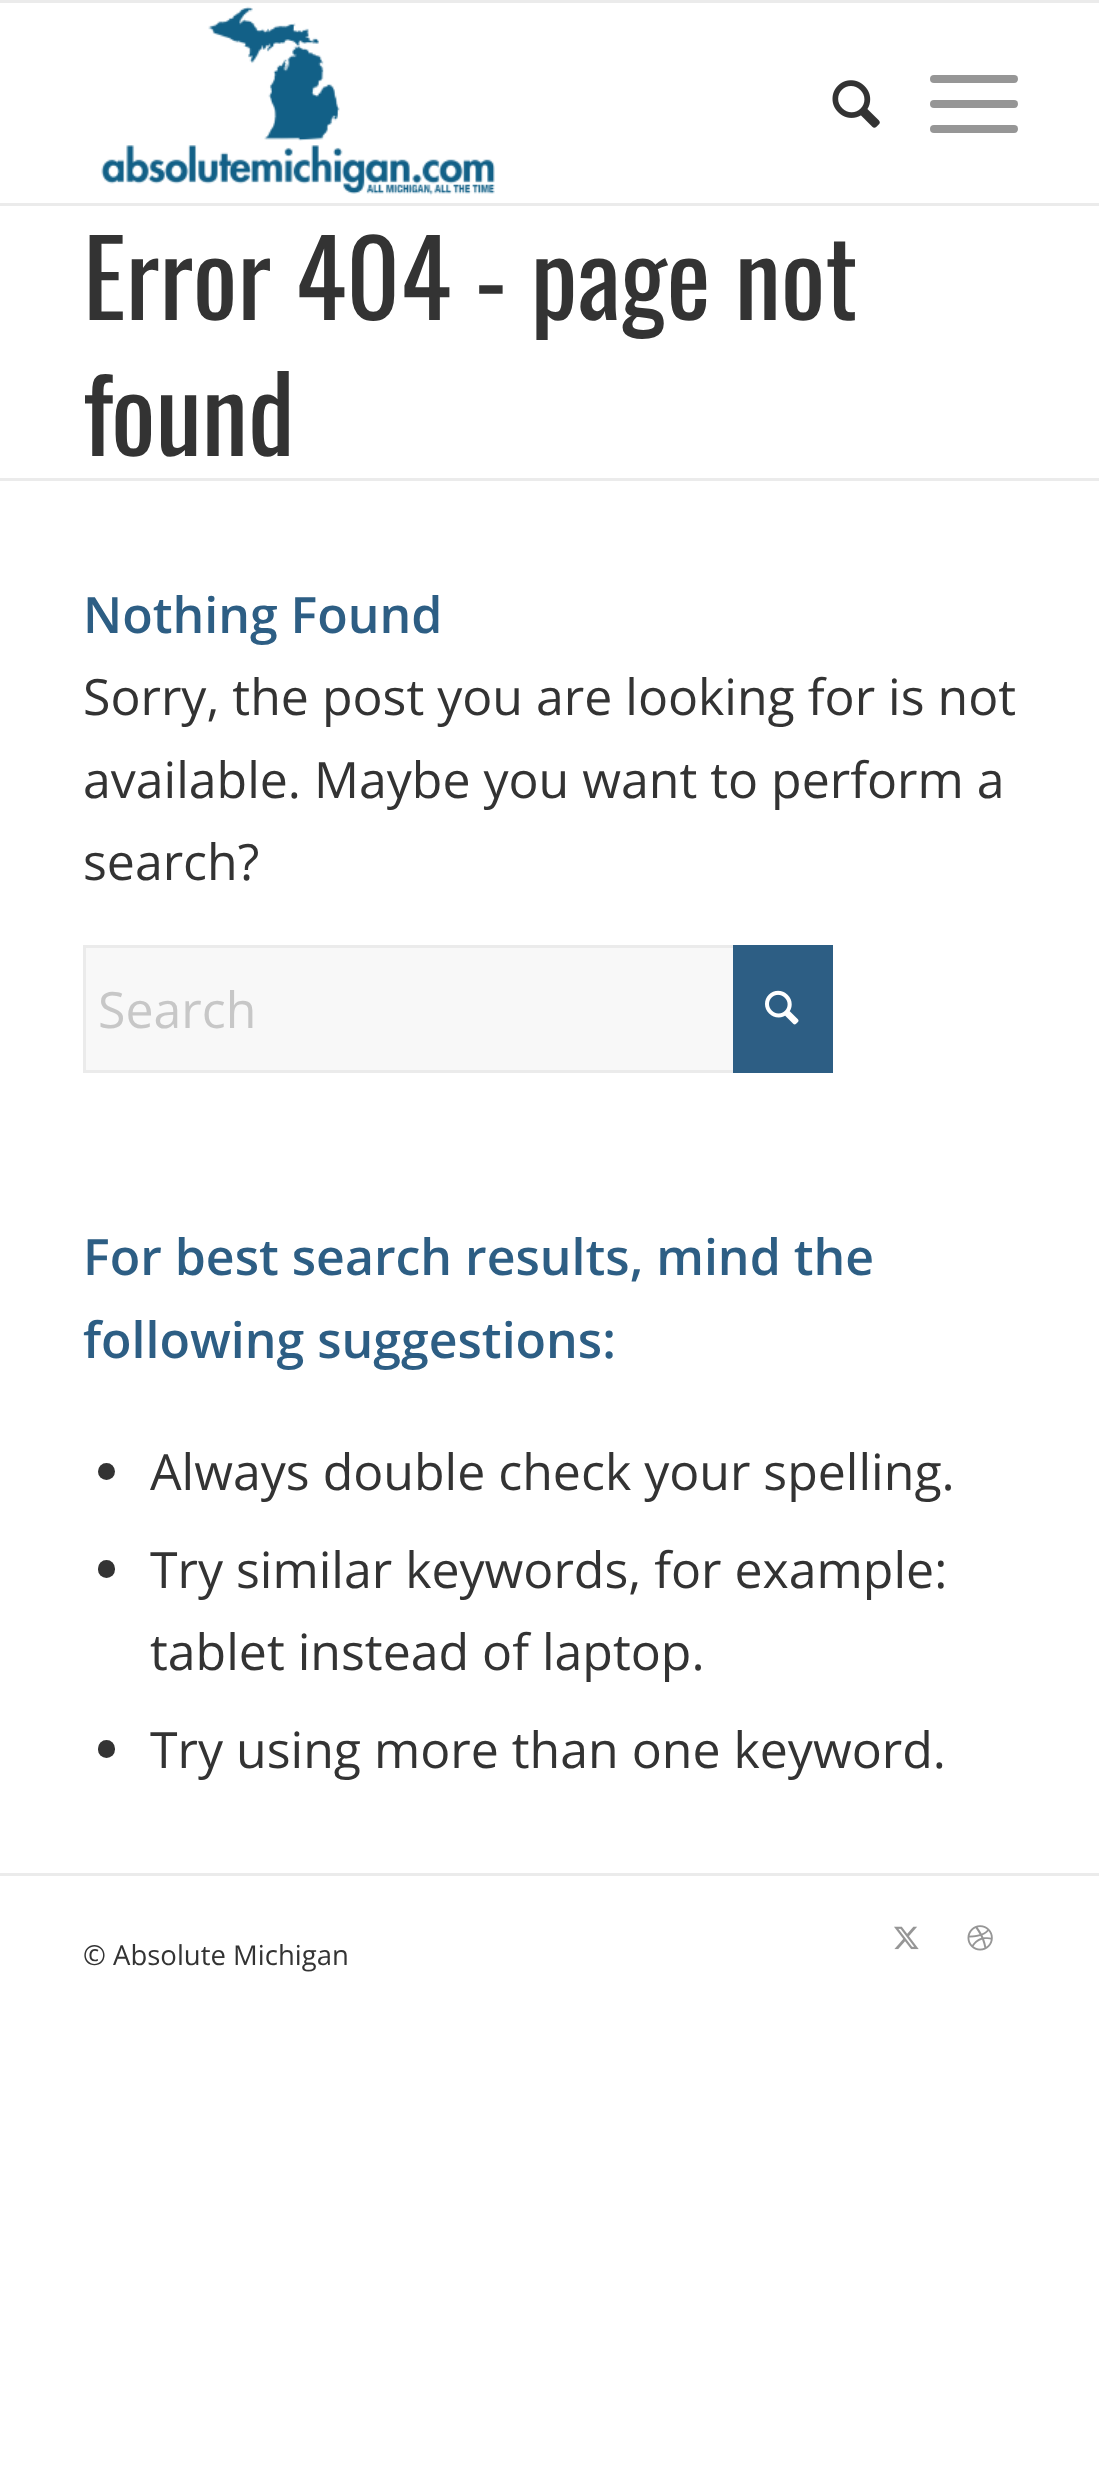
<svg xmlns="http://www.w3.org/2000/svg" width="1099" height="2470">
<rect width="100%" height="100%" fill="#fff"/>
<rect width="1099" height="3" fill="#ebebeb"/>
<rect y="203" width="1099" height="3" fill="#ebebeb"/>
<image x="101" y="6" width="394" height="190" href="media/1.png"/>
<image x="832" y="80" width="48" height="48" href="media/2.png"/>
<rect x="930" y="100" width="88" height="8" rx="4" fill="#969696"/>
<rect x="930" y="75" width="88" height="8" rx="4" fill="#969696"/>
<rect x="930" y="125" width="88" height="8" rx="4" fill="#969696"/>
<text x="83" y="320" style="font-family:Oswald;font-size:105px;fill:#333">Error 404 - page not</text>
<text x="83" y="456" style="font-family:Oswald;font-size:105px;fill:#333">found</text>
<rect y="478" width="1099" height="3" fill="#ebebeb"/>
<text x="83" y="633" style="font-family:Open Sans;font-size:50px;font-weight:600;fill:#2d5e84">Nothing Found</text>
<text x="83" y="715" style="font-family:Open Sans;font-size:50px;fill:#333">Sorry, the post you are looking for is not</text>
<text x="83" y="798" style="font-family:Open Sans;font-size:50px;fill:#333">available. Maybe you want to perform a</text>
<text x="83" y="880" style="font-family:Open Sans;font-size:50px;fill:#333">search?</text>
<rect x="86" y="948" width="647" height="122" fill="#f8f8f8"/>
<rect x="84.5" y="946.5" width="747" height="125" fill="none" stroke="#ebebeb" stroke-width="3"/>
<text x="98" y="1028" style="font-family:Open Sans;font-size:50px;fill:#c7c7c7">Search</text>
<rect x="733" y="945" width="100" height="128" fill="#2d5e84"/>
<image x="765" y="990" width="34" height="35" href="media/3.png"/>
<text x="83" y="1275" style="font-family:Open Sans;font-size:50px;font-weight:600;fill:#2d5e84">For best search results, mind the</text>
<text x="83" y="1358" style="font-family:Open Sans;font-size:50px;font-weight:600;fill:#2d5e84">following suggestions:</text>
<circle cx="106.5" cy="1471.5" r="8.5" fill="#333"/>
<text x="150" y="1490" style="font-family:Open Sans;font-size:50px;fill:#333">Always double check your spelling.</text>
<rect x="98" y="1560" width="17" height="18" rx="8.5" fill="#333"/>
<text x="150" y="1588" style="font-family:Open Sans;font-size:50px;fill:#333">Try similar keywords, for example:</text>
<text x="150" y="1670" style="font-family:Open Sans;font-size:50px;fill:#333">tablet instead of laptop.</text>
<rect x="98" y="1740" width="17" height="18" rx="8.5" fill="#333"/>
<text x="150" y="1768" style="font-family:Open Sans;font-size:50px;fill:#333">Try using more than one keyword.</text>
<rect y="1873" width="1099" height="3" fill="#ebebeb"/>
<image x="894" y="1926" width="25" height="24" href="media/4.png"/>
<image x="967" y="1925" width="26" height="26" href="media/5.png"/>
<text x="83" y="1965" style="font-family:Open Sans;font-size:27.5px;fill:#333">© Absolute Michigan</text>
</svg>
